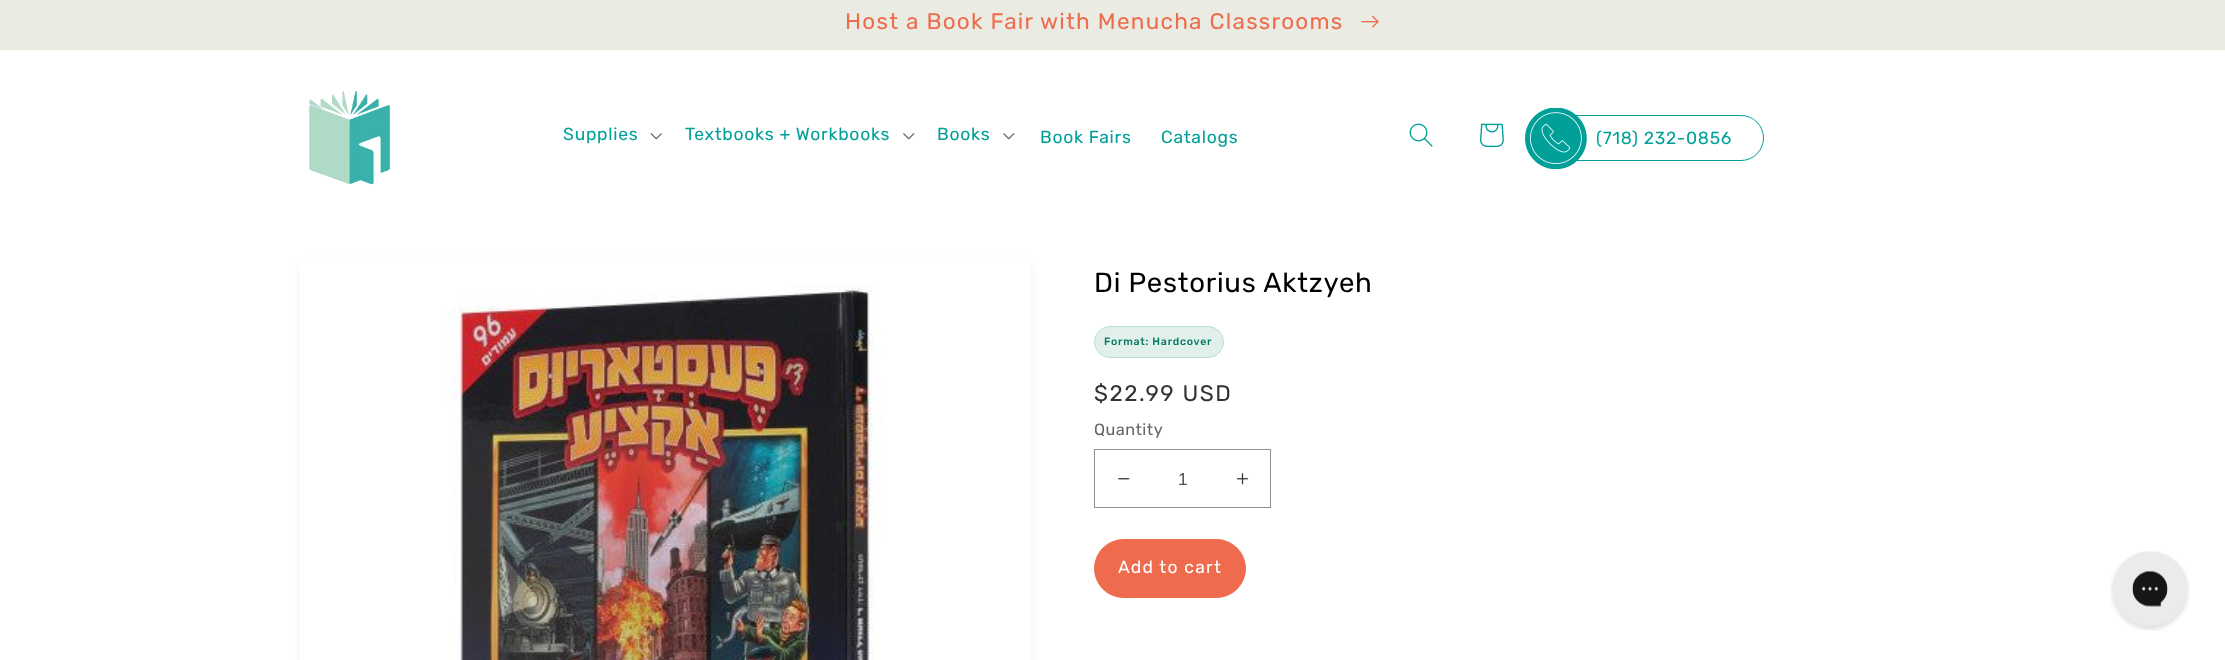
<svg xmlns="http://www.w3.org/2000/svg" width="2225" height="660">
<rect width="100%" height="100%" fill="#fff"/>
<rect y="49" width="2225" height="1" fill="#eae9e0"/>
<rect width="2225" height="49" fill="#eaece3"/>
<text x="845" y="29" style="font-family:Rubik;font-size:22.5px;letter-spacing:1.25px;fill:#ee6c4d">Host a Book Fair with Menucha Classrooms</text>
<image x="1361" y="15" width="18" height="13" href="media/1.png"/>
<image x="309" y="91" width="81" height="94" href="media/2.png"/>
<text x="563" y="140" style="font-family:Rubik;font-size:17.5px;letter-spacing:0.75px;fill:#00a099">Supplies</text>
<image x="650" y="133" width="12" height="7" href="media/3.png"/>
<text x="685" y="140" style="font-family:Rubik;font-size:17.5px;letter-spacing:0.75px;fill:#00a099">Textbooks + Workbooks</text>
<image x="903" y="133" width="12" height="7" href="media/4.png"/>
<text x="937" y="140" style="font-family:Rubik;font-size:17.5px;letter-spacing:0.75px;fill:#00a099">Books</text>
<image x="1003" y="133" width="12" height="7" href="media/4.png"/>
<text x="1040" y="143" style="font-family:Rubik;font-size:17.5px;letter-spacing:0.75px;fill:#00a099">Book Fairs</text>
<text x="1161" y="143" style="font-family:Rubik;font-size:17.5px;letter-spacing:0.75px;fill:#00a099">Catalogs</text>
<image x="1409" y="123" width="24" height="24" href="media/5.png"/>
<image x="1480" y="123" width="24" height="24" href="media/6.png"/>
<rect x="1555.5" y="115.5" width="208" height="45" rx="22.5" fill="none" stroke="#00a099"/>
<image x="1525" y="108" width="62" height="61" href="media/7.png"/>
<text x="1596" y="144" style="font-family:Rubik;font-size:17.5px;letter-spacing:0.75px;fill:#00a099">(718) 232-0856</text>
<rect x="300" y="263" width="731" height="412" fill="#0000000d" filter="blur(5px)"/>
<rect x="300" y="260" width="731" height="400" fill="#fff"/>
<image x="440" y="284" width="445" height="376" href="media/8.png"/>
<text x="1094" y="292" style="font-family:Rubik;font-size:27.5px;letter-spacing:0.75px;fill:#000">Di Pestorius Aktzyeh</text>
<rect x="1094.5" y="326.5" width="129" height="31" rx="15.5" fill="#e2f0eb" stroke="#b9e0d5"/>
<text x="1104" y="345" style="font-family:Rubik;font-size:10.6px;font-weight:500;letter-spacing:0.75px;fill:#027a63">Format: Hardcover</text>
<text x="1094" y="401" style="font-family:Rubik;font-size:22.5px;letter-spacing:1.6px;fill:#333">$22.99 USD</text>
<text x="1094" y="435" style="font-family:Rubik;font-size:16.25px;letter-spacing:0.5px;fill:#666">Quantity</text>
<image x="1118" y="478" width="12" height="2" href="media/9.png"/>
<image x="1236" y="473" width="13" height="12" href="media/10.png"/>
<rect x="1094.5" y="449.5" width="176" height="58" fill="none" stroke="#8f8f8f"/>
<text x="1178" y="485" style="font-family:Liberation Sans;font-size:17.5px;fill:#525252">1</text>
<rect x="1094.5" y="539.5" width="151" height="58" rx="29" fill="#ee6c4d" stroke="#ee6c4d"/>
<text x="1118" y="573" style="font-family:Rubik;font-size:17.5px;letter-spacing:1.25px;fill:#fff">Add to cart</text>
<image x="2110" y="551" width="80" height="80" href="media/11.png"/>
</svg>
